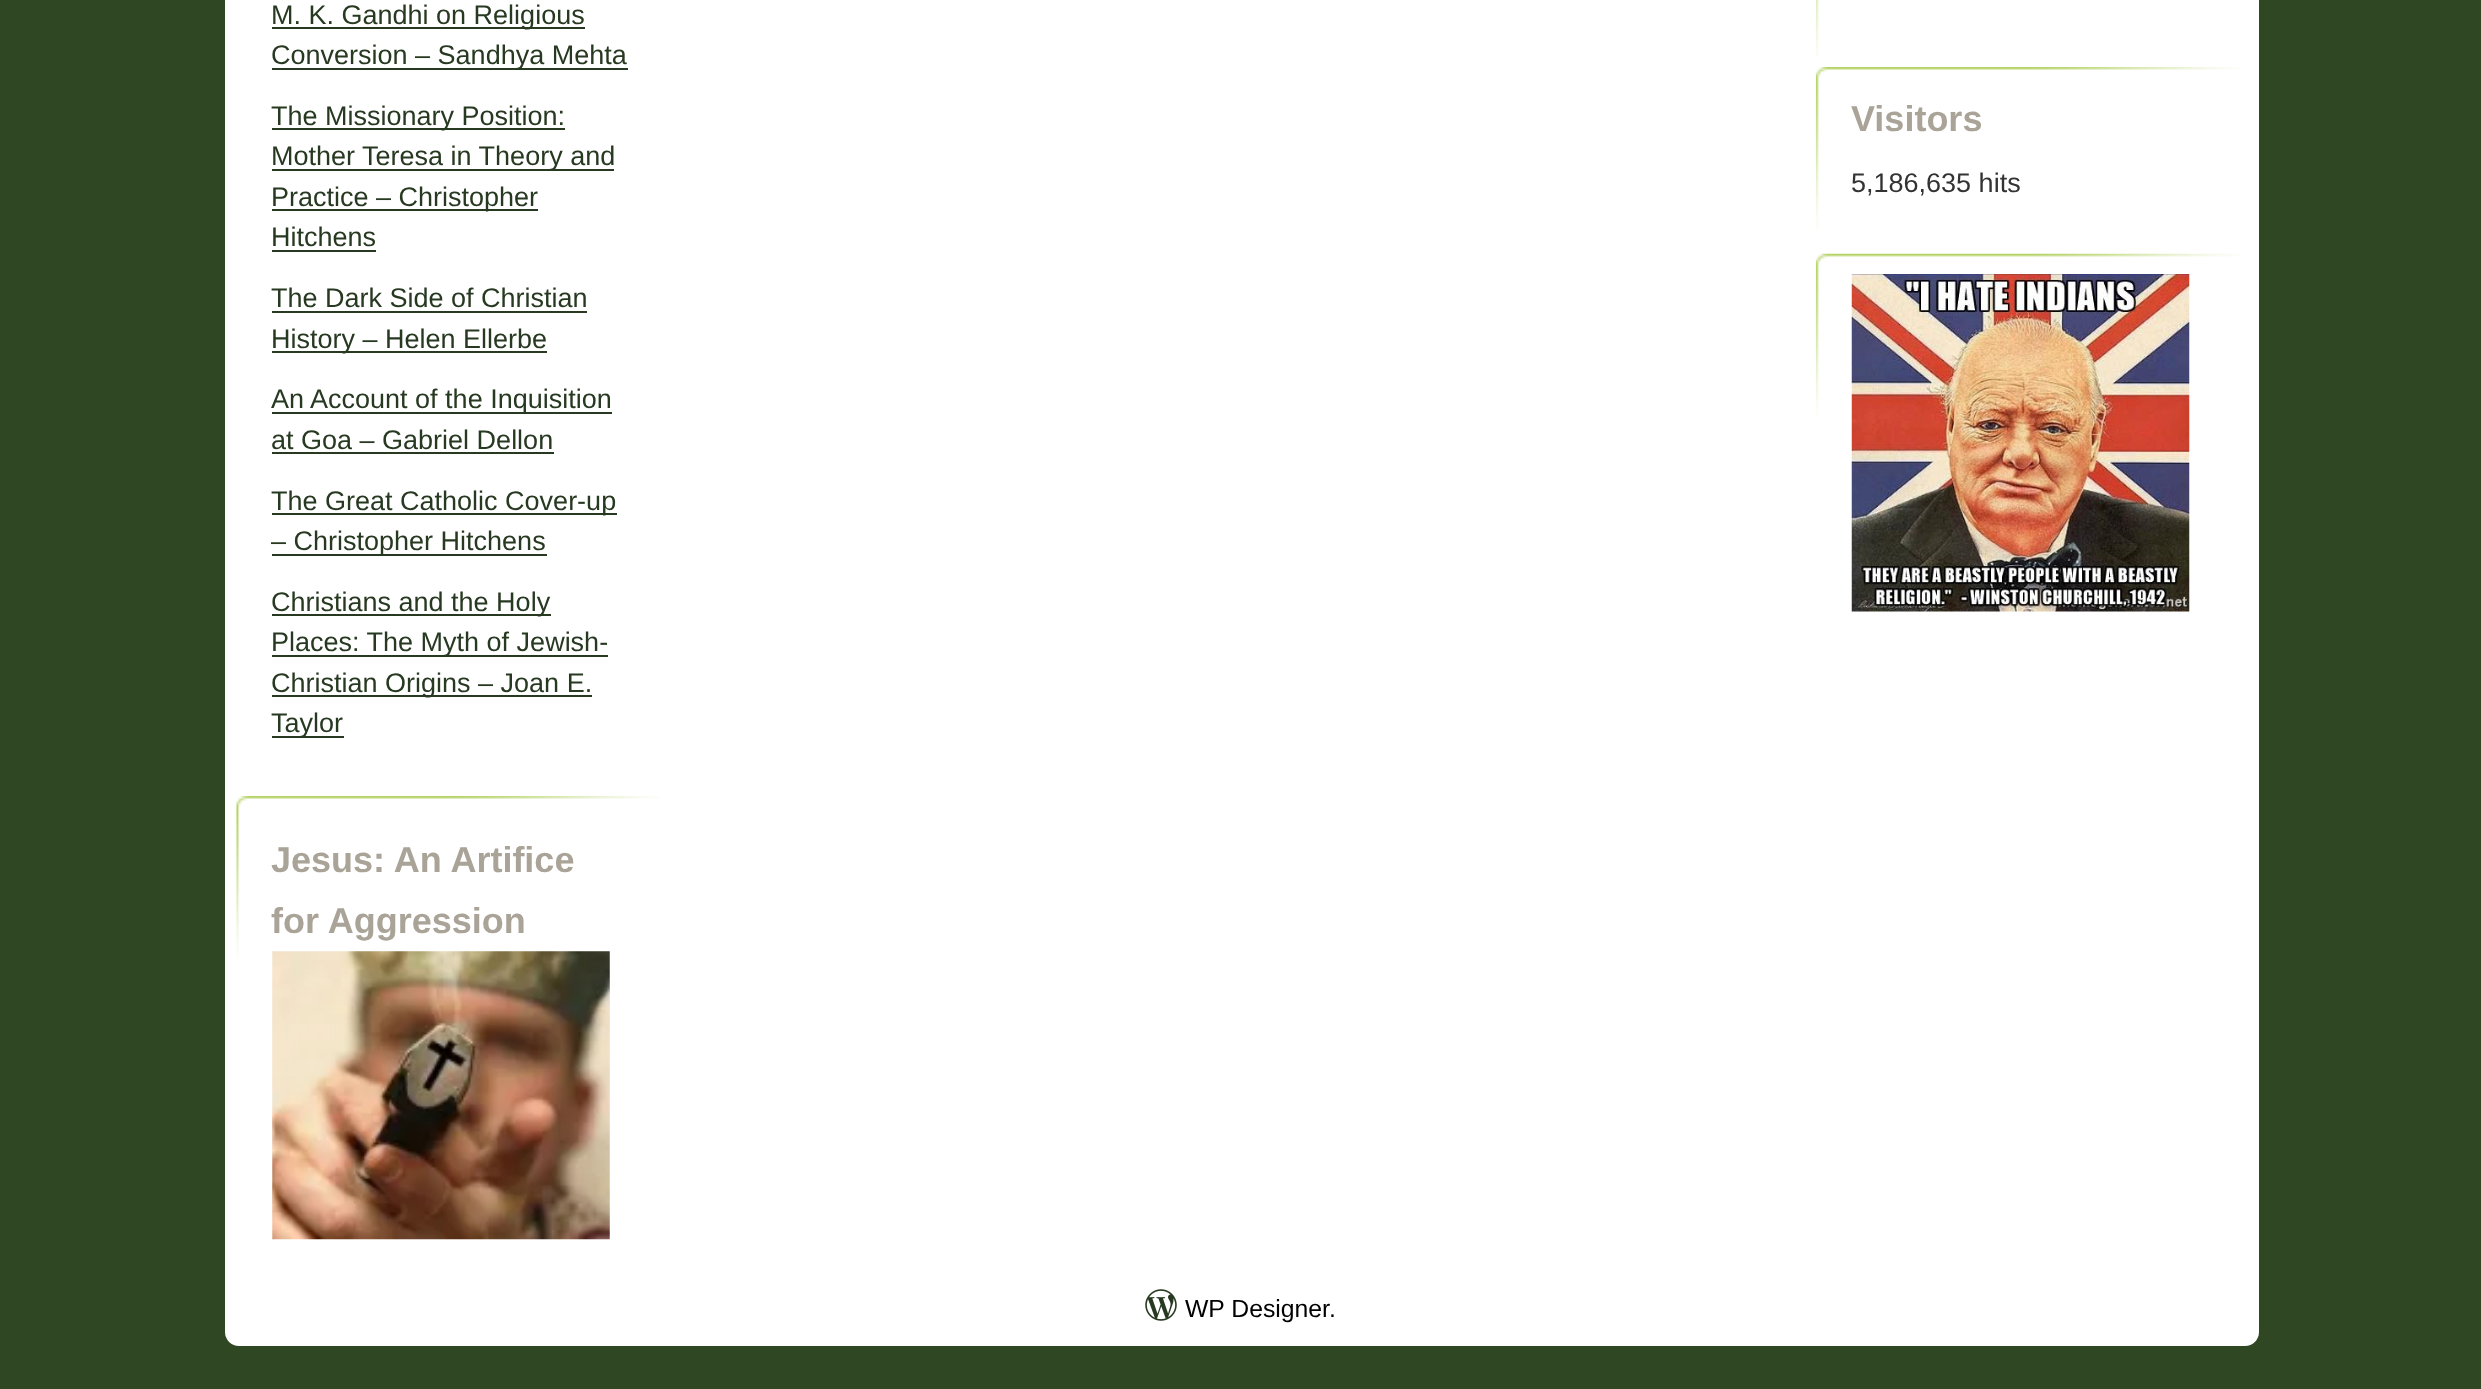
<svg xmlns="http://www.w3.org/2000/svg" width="2481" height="1389">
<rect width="100%" height="100%" fill="#2f4723"/>
<rect x="225" y="-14" width="2034" height="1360" rx="14" fill="#fff"/>
<rect x="272" y="27" width="313" height="2" fill="#273921"/>
<text x="271" y="24" style="font-family:Liberation Sans;font-size:27px;fill:#273921">M. K. Gandhi on Religious</text>
<rect x="272" y="68" width="356" height="2" fill="#273921"/>
<text x="271" y="64" style="font-family:Liberation Sans;font-size:27px;fill:#273921">Conversion – Sandhya Mehta</text>
<rect x="272" y="128" width="293" height="2" fill="#273921"/>
<text x="271" y="125" style="font-family:Liberation Sans;font-size:27px;fill:#273921">The Missionary Position:</text>
<rect x="272" y="169" width="342" height="2" fill="#273921"/>
<text x="271" y="165" style="font-family:Liberation Sans;font-size:27px;fill:#273921">Mother Teresa in Theory and</text>
<rect x="272" y="209" width="266" height="2" fill="#273921"/>
<text x="271" y="206" style="font-family:Liberation Sans;font-size:27px;fill:#273921">Practice – Christopher</text>
<text x="271" y="246" style="font-family:Liberation Sans;font-size:27px;fill:#273921">Hitchens</text>
<rect x="272" y="250" width="104" height="2" fill="#273921"/>
<text x="271" y="307" style="font-family:Liberation Sans;font-size:27px;fill:#273921">The Dark Side of Christian</text>
<rect x="272" y="311" width="315" height="2" fill="#273921"/>
<rect x="272" y="351" width="275" height="2" fill="#273921"/>
<text x="271" y="348" style="font-family:Liberation Sans;font-size:27px;fill:#273921">History – Helen Ellerbe</text>
<rect x="272" y="412" width="340" height="2" fill="#273921"/>
<text x="271" y="408" style="font-family:Liberation Sans;font-size:27px;fill:#273921">An Account of the Inquisition</text>
<text x="271" y="449" style="font-family:Liberation Sans;font-size:27px;fill:#273921">at Goa – Gabriel Dellon</text>
<rect x="272" y="452" width="282" height="2" fill="#273921"/>
<rect x="272" y="513" width="345" height="2" fill="#273921"/>
<text x="271" y="510" style="font-family:Liberation Sans;font-size:27px;fill:#273921">The Great Catholic Cover-up</text>
<rect x="272" y="554" width="275" height="2" fill="#273921"/>
<text x="271" y="550" style="font-family:Liberation Sans;font-size:27px;fill:#273921">– Christopher Hitchens</text>
<rect x="272" y="614" width="279" height="2" fill="#273921"/>
<text x="271" y="611" style="font-family:Liberation Sans;font-size:27px;fill:#273921">Christians and the Holy</text>
<rect x="272" y="655" width="336" height="2" fill="#273921"/>
<text x="271" y="651" style="font-family:Liberation Sans;font-size:27px;fill:#273921">Places: The Myth of Jewish-</text>
<rect x="272" y="695" width="320" height="2" fill="#273921"/>
<text x="271" y="692" style="font-family:Liberation Sans;font-size:27px;fill:#273921">Christian Origins – Joan E.</text>
<rect x="272" y="736" width="72" height="2" fill="#273921"/>
<text x="271" y="732" style="font-family:Liberation Sans;font-size:27px;fill:#273921">Taylor</text>
<image x="236" y="796" width="424" height="163" href="media/1.png"/>
<text x="271" y="872" style="font-family:Liberation Sans;font-size:36px;font-weight:bold;fill:#a9a398">Jesus: An Artifice</text>
<text x="271" y="933" style="font-family:Liberation Sans;font-size:36px;font-weight:bold;fill:#a9a398">for Aggression</text>
<image x="272" y="951" width="338" height="289" href="media/2.png"/>
<image x="1815" y="0" width="4" height="56" href="media/3.png"/>
<image x="1815" y="67" width="425" height="163" href="media/4.png"/>
<text x="1851" y="131" style="font-family:Liberation Sans;font-size:36px;font-weight:bold;fill:#a9a398">Visitors</text>
<text x="1851" y="192" style="font-family:Liberation Sans;font-size:27px;fill:#333">5,186,635 hits</text>
<image x="1815" y="253" width="425" height="164" href="media/5.png"/>
<image x="1851" y="274" width="339" height="338" href="media/6.png"/>
<image x="1145" y="1289" width="32" height="32" href="media/7.png"/>
<text x="1185" y="1317" style="font-family:Liberation Sans;font-size:24.75px;fill:#000">WP Designer.</text>
</svg>
